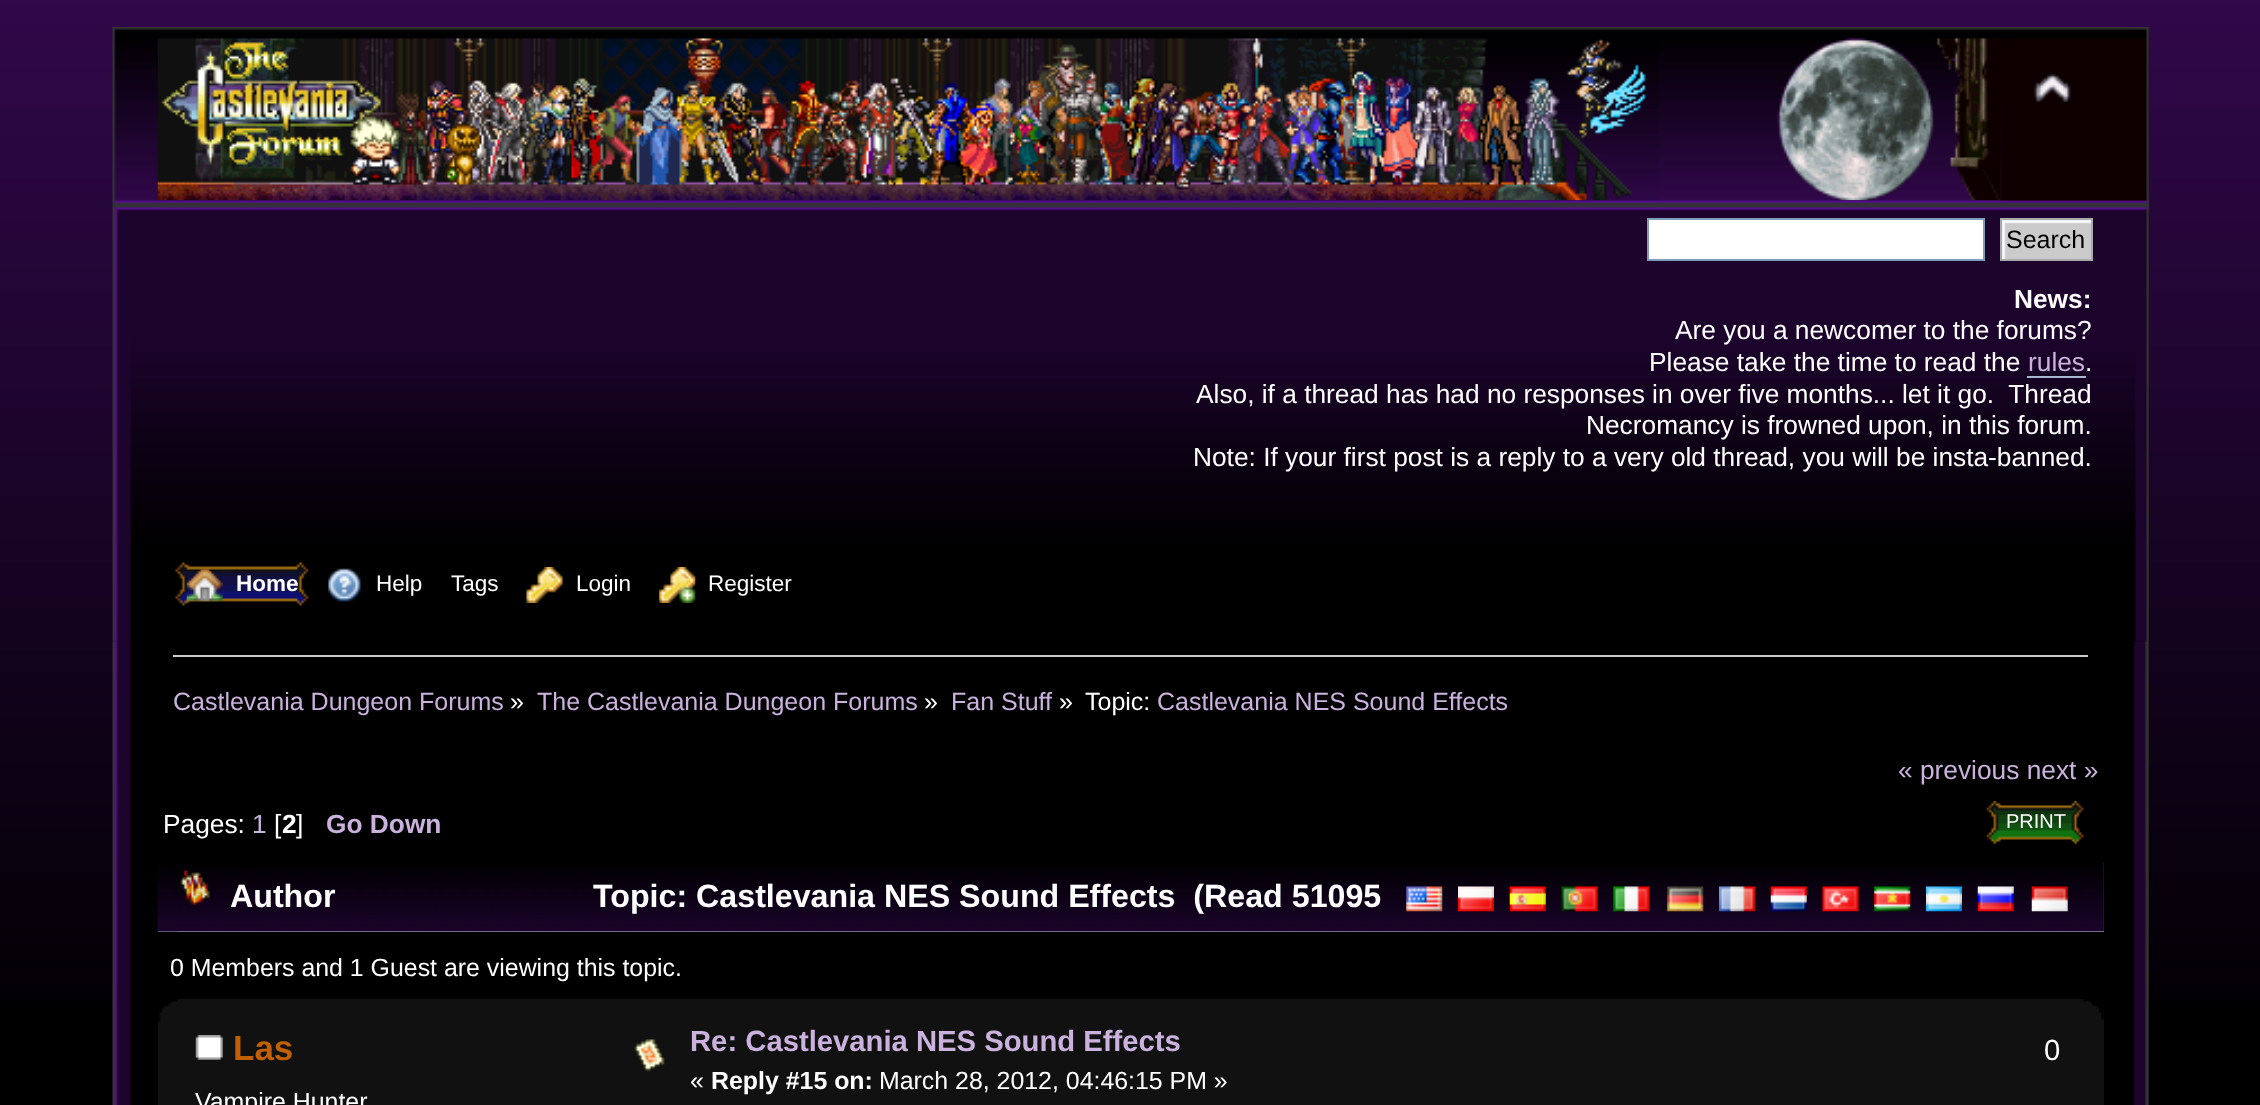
<svg xmlns="http://www.w3.org/2000/svg" width="2260" height="1105">
<rect width="100%" height="100%" fill="#000"/>
<image x="0" y="0" width="2260" height="1001" href="media/1.png"/>
<image x="112" y="27" width="2037" height="615" href="media/2.png"/>
<image x="158" y="27" width="1991" height="615" href="media/3.png"/>
<image x="157" y="38" width="1502" height="163" href="media/4.png"/>
<image x="1777" y="38" width="224" height="163" href="media/5.png"/>
<image x="2033" y="73" width="38" height="29" href="media/6.png"/>
<rect x="1648" y="219" width="336" height="41" fill="#fff" stroke="#7f9db9" stroke-width="2"/>
<rect x="2002" y="220" width="89" height="39" fill="#cde7ff"/>
<image x="2002" y="220" width="89" height="39" href="media/7.png"/>
<rect x="2001" y="219" width="91" height="41" fill="none" stroke="#aaa" stroke-width="2"/>
<text x="2006" y="248" style="font-family:Liberation Sans;font-size:25px;fill:#000">Search</text>
<text x="2014" y="308" style="font-family:Liberation Sans;font-size:26.3px;font-weight:bold;fill:#fff">News:</text>
<text x="1675" y="339" style="font-family:Liberation Sans;font-size:26.3px;fill:#fff">Are you a newcomer to the forums?</text>
<text x="1649" y="371" style="font-family:Liberation Sans;font-size:26.3px;fill:#fff">Please take the time to read the</text>
<text x="2028" y="371" style="font-family:Liberation Sans;font-size:26.3px;fill:#cbb2de">rules</text>
<text x="2085" y="371" style="font-family:Liberation Sans;font-size:26.3px;fill:#fff">.</text>
<rect x="2027" y="376" width="59" height="2" fill="#a8b6cf"/>
<text x="1196" y="403" style="font-family:Liberation Sans;font-size:26.3px;fill:#fff" xml:space="preserve">Also, if a thread has had no responses in over five months... let it go.  Thread</text>
<text x="1586" y="434" style="font-family:Liberation Sans;font-size:26.3px;fill:#fff">Necromancy is frowned upon, in this forum.</text>
<text x="1193" y="466" style="font-family:Liberation Sans;font-size:26.3px;fill:#fff">Note: If your first post is a reply to a very old thread, you will be insta-banned.</text>
<image x="188" y="562" width="121" height="44" href="media/8.png"/>
<image x="175" y="562" width="122" height="44" href="media/9.png"/>
<image x="186" y="568" width="37" height="34" href="media/10.png"/>
<text x="236" y="591" style="font-family:Liberation Sans;font-size:22.5px;font-weight:bold;fill:#fff">Home</text>
<image x="328" y="568" width="33" height="34" href="media/11.png"/>
<text x="376" y="591" style="font-family:Liberation Sans;font-size:22.5px;fill:#fff">Help</text>
<text x="451" y="591" style="font-family:Liberation Sans;font-size:22.5px;fill:#fff">Tags</text>
<image x="526" y="567" width="37" height="36" href="media/12.png"/>
<text x="576" y="591" style="font-family:Liberation Sans;font-size:22.5px;fill:#fff">Login</text>
<image x="659" y="567" width="37" height="36" href="media/13.png"/>
<text x="708" y="591" style="font-family:Liberation Sans;font-size:22.5px;fill:#fff">Register</text>
<image x="112" y="641" width="2037" height="464" href="media/14.png"/>
<image x="157" y="641" width="1992" height="464" href="media/15.png"/>
<rect x="173" y="655" width="1915" height="2" fill="#ccc"/>
<text x="173" y="710" style="font-family:Liberation Sans;font-size:25px;fill:#cbb2de">Castlevania Dungeon Forums</text>
<text x="510" y="710" style="font-family:Liberation Sans;font-size:25px;fill:#fff">»</text>
<text x="537" y="710" style="font-family:Liberation Sans;font-size:25px;fill:#cbb2de">The Castlevania Dungeon Forums</text>
<text x="924" y="710" style="font-family:Liberation Sans;font-size:25px;fill:#fff">»</text>
<text x="951" y="710" style="font-family:Liberation Sans;font-size:25px;fill:#cbb2de">Fan Stuff</text>
<text x="1059" y="710" style="font-family:Liberation Sans;font-size:25px;fill:#fff">»</text>
<text x="1085" y="710" style="font-family:Liberation Sans;font-size:25px;fill:#fff">Topic:</text>
<text x="1157" y="710" style="font-family:Liberation Sans;font-size:25px;fill:#cbb2de">Castlevania NES Sound Effects</text>
<text x="1898" y="779" style="font-family:Liberation Sans;font-size:26.3px;fill:#cbb2de">« previous next »</text>
<text x="163" y="833" style="font-family:Liberation Sans;font-size:26.3px;fill:#fff">Pages:</text>
<text x="252" y="833" style="font-family:Liberation Sans;font-size:26.3px;fill:#cbb2de">1</text>
<text x="274" y="833" style="font-family:Liberation Sans;font-size:26.3px;fill:#fff">[</text>
<text x="282" y="833" style="font-family:Liberation Sans;font-size:26.3px;font-weight:bold;fill:#fff">2</text>
<text x="296" y="833" style="font-family:Liberation Sans;font-size:26.3px;fill:#fff">]</text>
<text x="326" y="833" style="font-family:Liberation Sans;font-size:26.3px;font-weight:bold;fill:#cbb2de">Go Down</text>
<image x="1986" y="801" width="19" height="43" href="media/16.png"/>
<image x="2004" y="801" width="80" height="43" href="media/17.png"/>
<text x="2006" y="828" style="font-family:Liberation Sans;font-size:20px;fill:#fff">PRINT</text>
<rect x="158" y="862" width="1946" height="70" fill="#99abbf"/>
<image x="157" y="862" width="1947" height="70" href="media/18.png"/>
<image x="177" y="862" width="1927" height="70" href="media/19.png"/>
<image x="179" y="870" width="31" height="36" href="media/20.png"/>
<text x="230" y="907" style="font-family:Liberation Sans;font-size:32.2px;font-weight:bold;fill:#fff">Author</text>
<text x="593" y="907" style="font-family:Liberation Sans;font-size:32.2px;font-weight:bold;fill:#fff" xml:space="preserve">Topic: Castlevania NES Sound Effects  (Read 51095</text>
<image x="1406" y="886" width="37" height="26" href="media/21.png"/>
<image x="1458" y="886" width="36" height="26" href="media/22.png"/>
<image x="1509" y="886" width="37" height="26" href="media/23.png"/>
<image x="1561" y="886" width="37" height="26" href="media/24.png"/>
<image x="1613" y="886" width="37" height="26" href="media/25.png"/>
<image x="1667" y="886" width="37" height="26" href="media/26.png"/>
<image x="1719" y="886" width="36" height="26" href="media/27.png"/>
<image x="1770" y="886" width="37" height="26" href="media/28.png"/>
<image x="1822" y="886" width="37" height="26" href="media/29.png"/>
<image x="1874" y="886" width="37" height="26" href="media/30.png"/>
<image x="1926" y="886" width="36" height="26" href="media/31.png"/>
<image x="1977" y="886" width="37" height="26" href="media/32.png"/>
<image x="2031" y="886" width="37" height="26" href="media/33.png"/>
<text x="170" y="976" style="font-family:Liberation Sans;font-size:24.9px;fill:#fff">0 Members and 1 Guest are viewing this topic.</text>
<rect x="158" y="999" width="1946" height="106" fill="#111"/>
<image x="157" y="999" width="21" height="25" href="media/34.png"/>
<image x="2083" y="999" width="21" height="21" href="media/35.png"/>
<image x="195" y="1035" width="28" height="25" href="media/36.png"/>
<text x="233" y="1060" style="font-family:Liberation Sans;font-size:35px;font-weight:bold;fill:#c06002">Las</text>
<text x="195" y="1110" style="font-family:Liberation Sans;font-size:24.9px;fill:#fff">Vampire Hunter</text>
<image x="634" y="1039" width="31" height="33" href="media/37.png"/>
<text x="690" y="1051" style="font-family:Liberation Sans;font-size:29.25px;font-weight:bold;fill:#cbb2de">Re: Castlevania NES Sound Effects</text>
<text x="690" y="1089" style="font-family:Liberation Sans;font-size:24.9px;fill:#fff">«</text>
<text x="711" y="1089" style="font-family:Liberation Sans;font-size:24.9px;font-weight:bold;fill:#fff">Reply #15 on:</text>
<text x="879" y="1089" style="font-family:Liberation Sans;font-size:24.9px;fill:#fff">March 28, 2012, 04:46:15 PM »</text>
<text x="2044" y="1060" style="font-family:Liberation Sans;font-size:29.25px;fill:#fff">0</text>
</svg>
